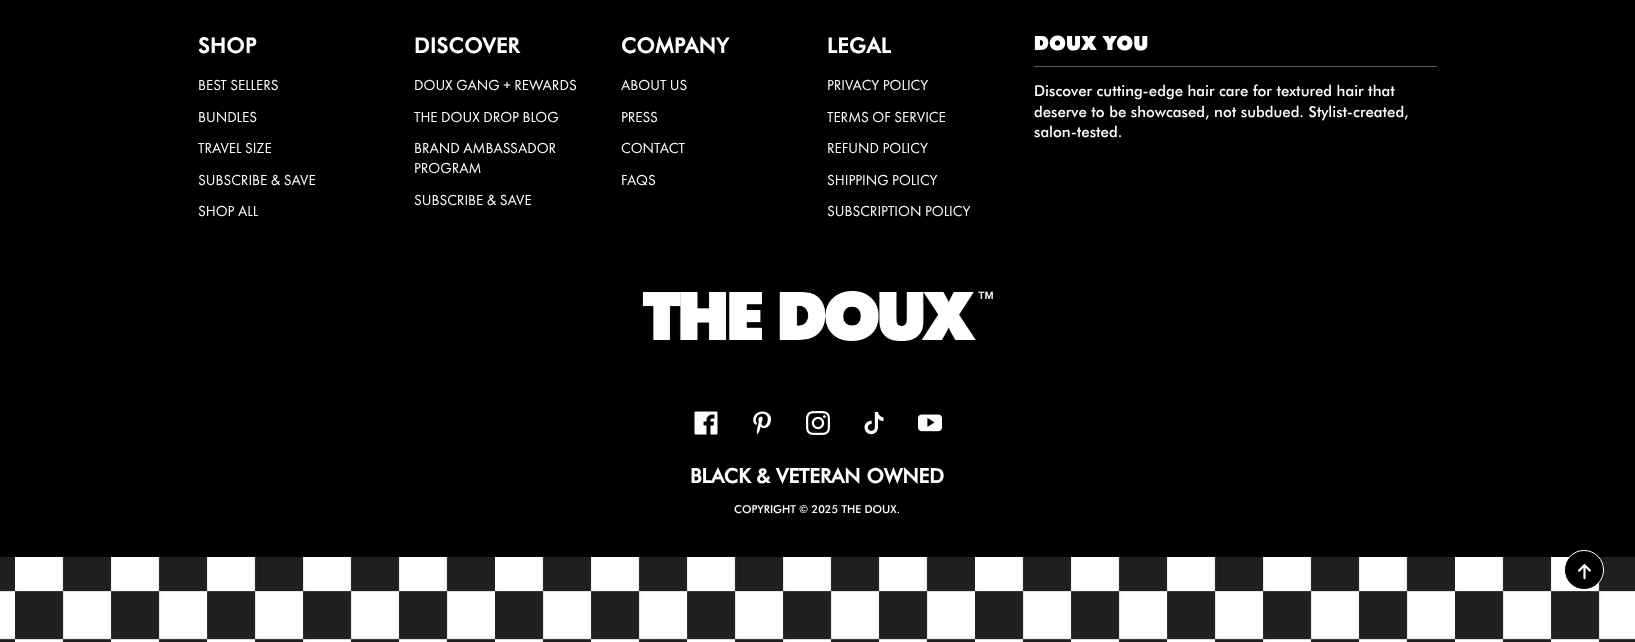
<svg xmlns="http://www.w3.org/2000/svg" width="1635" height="642">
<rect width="100%" height="100%" fill="#000"/>
<text x="198" y="53" style="font-family:Futura;font-size:21px;font-weight:bold;letter-spacing:0.5px;fill:#fff">SHOP</text>
<text x="198" y="90" style="font-family:Futura PT;font-size:15px;fill:#fff">BEST SELLERS</text>
<text x="198" y="122" style="font-family:Futura PT;font-size:15px;fill:#fff">BUNDLES</text>
<text x="198" y="153" style="font-family:Futura PT;font-size:15px;fill:#fff">TRAVEL SIZE</text>
<text x="198" y="185" style="font-family:Futura PT;font-size:15px;fill:#fff">SUBSCRIBE &amp; SAVE</text>
<text x="198" y="216" style="font-family:Futura PT;font-size:15px;fill:#fff">SHOP ALL</text>
<text x="414" y="53" style="font-family:Futura;font-size:21px;font-weight:bold;letter-spacing:0.5px;fill:#fff">DISCOVER</text>
<text x="414" y="90" style="font-family:Futura PT;font-size:15px;fill:#fff">DOUX GANG + REWARDS</text>
<text x="414" y="122" style="font-family:Futura PT;font-size:15px;fill:#fff">THE DOUX DROP BLOG</text>
<text x="414" y="153" style="font-family:Futura PT;font-size:15px;fill:#fff">BRAND AMBASSADOR</text>
<text x="414" y="173" style="font-family:Futura PT;font-size:15px;fill:#fff">PROGRAM</text>
<text x="414" y="205" style="font-family:Futura PT;font-size:15px;fill:#fff">SUBSCRIBE &amp; SAVE</text>
<text x="621" y="53" style="font-family:Futura;font-size:21px;font-weight:bold;letter-spacing:0.5px;fill:#fff">COMPANY</text>
<text x="621" y="90" style="font-family:Futura PT;font-size:15px;fill:#fff">ABOUT US</text>
<text x="621" y="122" style="font-family:Futura PT;font-size:15px;fill:#fff">PRESS</text>
<text x="621" y="153" style="font-family:Futura PT;font-size:15px;fill:#fff">CONTACT</text>
<text x="621" y="185" style="font-family:Futura PT;font-size:15px;fill:#fff">FAQS</text>
<text x="827" y="53" style="font-family:Futura;font-size:21px;font-weight:bold;letter-spacing:0.5px;fill:#fff">LEGAL</text>
<text x="827" y="90" style="font-family:Futura PT;font-size:15px;fill:#fff">PRIVACY POLICY</text>
<text x="827" y="122" style="font-family:Futura PT;font-size:15px;fill:#fff">TERMS OF SERVICE</text>
<text x="827" y="153" style="font-family:Futura PT;font-size:15px;fill:#fff">REFUND POLICY</text>
<text x="827" y="185" style="font-family:Futura PT;font-size:15px;fill:#fff">SHIPPING POLICY</text>
<text x="827" y="216" style="font-family:Futura PT;font-size:15px;fill:#fff">SUBSCRIPTION POLICY</text>
<text x="1034" y="50" style="font-family:'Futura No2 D';font-size:21px;font-weight:800;letter-spacing:0.5px;fill:#fff">DOUX YOU</text>
<rect x="1034" y="66" width="403" height="1" fill="#5c5c5c"/>
<text x="1034" y="96" style="font-family:Futura;font-size:15px;font-weight:500;fill:#fff">Discover cutting-edge hair care for textured hair that</text>
<text x="1034" y="117" style="font-family:Futura;font-size:15px;font-weight:500;fill:#fff">deserve to be showcased, not subdued. Stylist-created,</text>
<text x="1034" y="137" style="font-family:Futura;font-size:15px;font-weight:500;fill:#fff">salon-tested.</text>
<image x="642" y="291" width="351" height="50" href="media/1.png"/>
<image x="694" y="411" width="24" height="24" href="media/2.png"/>
<image x="753" y="411" width="18" height="24" href="media/3.png"/>
<image x="806" y="411" width="24" height="24" href="media/4.png"/>
<image x="864" y="412" width="20" height="23" href="media/5.png"/>
<image x="918" y="414" width="24" height="18" href="media/6.png"/>
<text x="690" y="483" style="font-family:Futura;font-size:20px;font-weight:bold;fill:#fff">BLACK &amp; VETERAN OWNED</text>
<text x="734" y="513" style="font-family:Futura;font-size:11px;font-weight:500;fill:#fff">COPYRIGHT © 2025 THE DOUX.</text>
<image x="0" y="557" width="1635" height="85" href="media/7.png"/>
<circle cx="1584" cy="570" r="19.5" fill="#000" stroke="#fff"/>
<image x="1578" y="564" width="13" height="16" href="media/8.png"/>
</svg>
